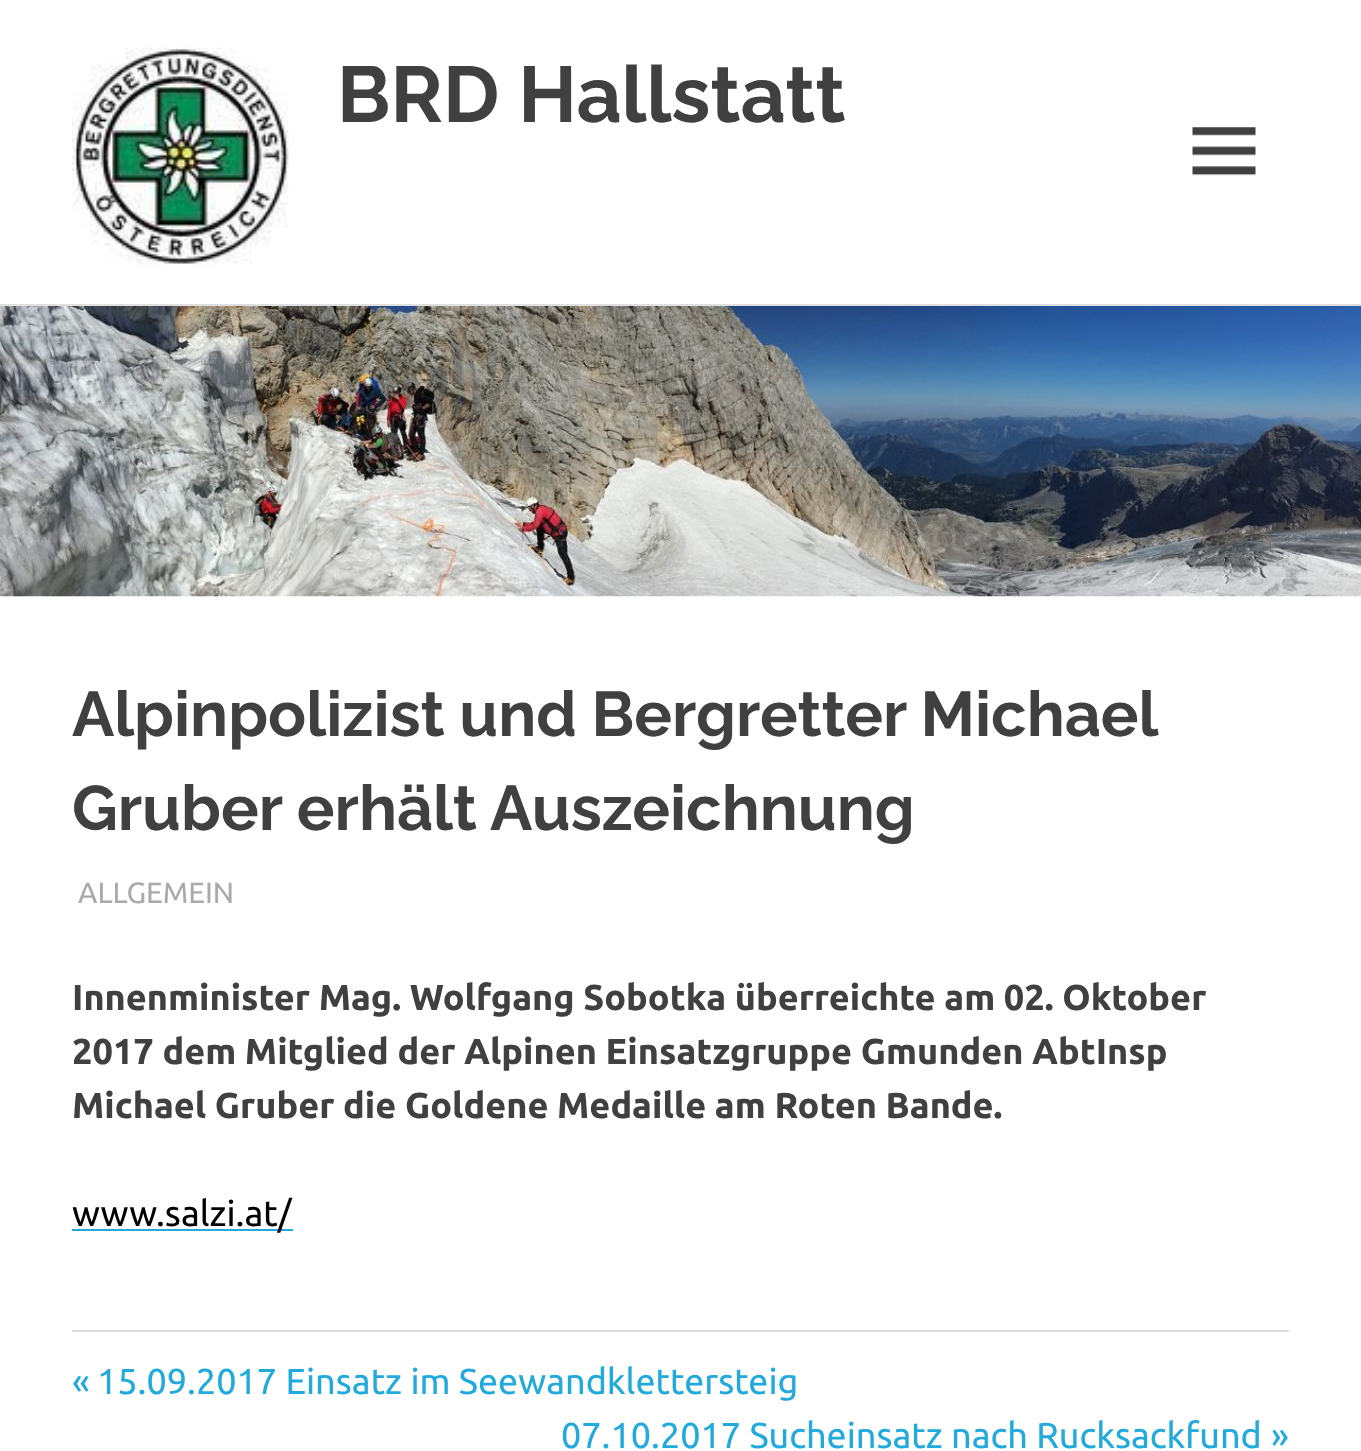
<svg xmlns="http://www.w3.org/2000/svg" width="1361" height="1451">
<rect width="100%" height="100%" fill="#fff"/>
<rect y="304" width="1361" height="2" fill="#e0e0e0"/>
<image x="72" y="47" width="217" height="221" href="media/1.png"/>
<text x="337" y="122" style="font-family:Raleway;font-size:78.75px;font-weight:100;fill:#404040">BRD Hallstatt</text>
<image x="1192" y="127" width="64" height="49" href="media/2.png"/>
<image x="0" y="306" width="1361" height="291" href="media/3.png"/>
<text x="72" y="736" word-spacing="-0.5" style="font-family:Raleway;font-size:63px;font-weight:100;fill:#404040">Alpinpolizist und Bergretter Michael</text>
<text x="72" y="830" style="font-family:Raleway;font-size:63px;font-weight:100;fill:#404040">Gruber erhält Auszeichnung</text>
<text x="78" y="903" style="font-family:Ubuntu;font-size:29.25px;fill:#aaa">ALLGEMEIN</text>
<text x="72" y="1010" style="font-family:Ubuntu;font-size:36px;font-weight:bold;fill:#404040">Innenminister Mag. Wolfgang Sobotka überreichte am 02. Oktober</text>
<text x="72" y="1064" style="font-family:Ubuntu;font-size:36px;font-weight:bold;fill:#404040">2017 dem Mitglied der Alpinen Einsatzgruppe Gmunden AbtInsp</text>
<text x="72" y="1118" style="font-family:Ubuntu;font-size:36px;font-weight:bold;fill:#404040">Michael Gruber die Goldene Medaille am Roten Bande.</text>
<rect x="72" y="1229" width="221" height="2" fill="#2ad"/>
<text x="72" y="1226" style="font-family:Ubuntu;font-size:36px;fill:#000">www.salzi.at/</text>
<rect x="72" y="1330" width="1217" height="2" fill="#ddd"/>
<text x="72" y="1394" style="font-family:Ubuntu;font-size:36px;fill:#2ad">«</text>
<text x="97" y="1394" style="font-family:Ubuntu;font-size:36px;fill:#2ad">15.09.2017 Einsatz im Seewandklettersteig</text>
<text x="561" y="1448" style="font-family:Ubuntu;font-size:36px;fill:#2ad">07.10.2017 Sucheinsatz nach Rucksackfund</text>
<text x="1271" y="1448" style="font-family:Ubuntu;font-size:36px;fill:#2ad">»</text>
</svg>
